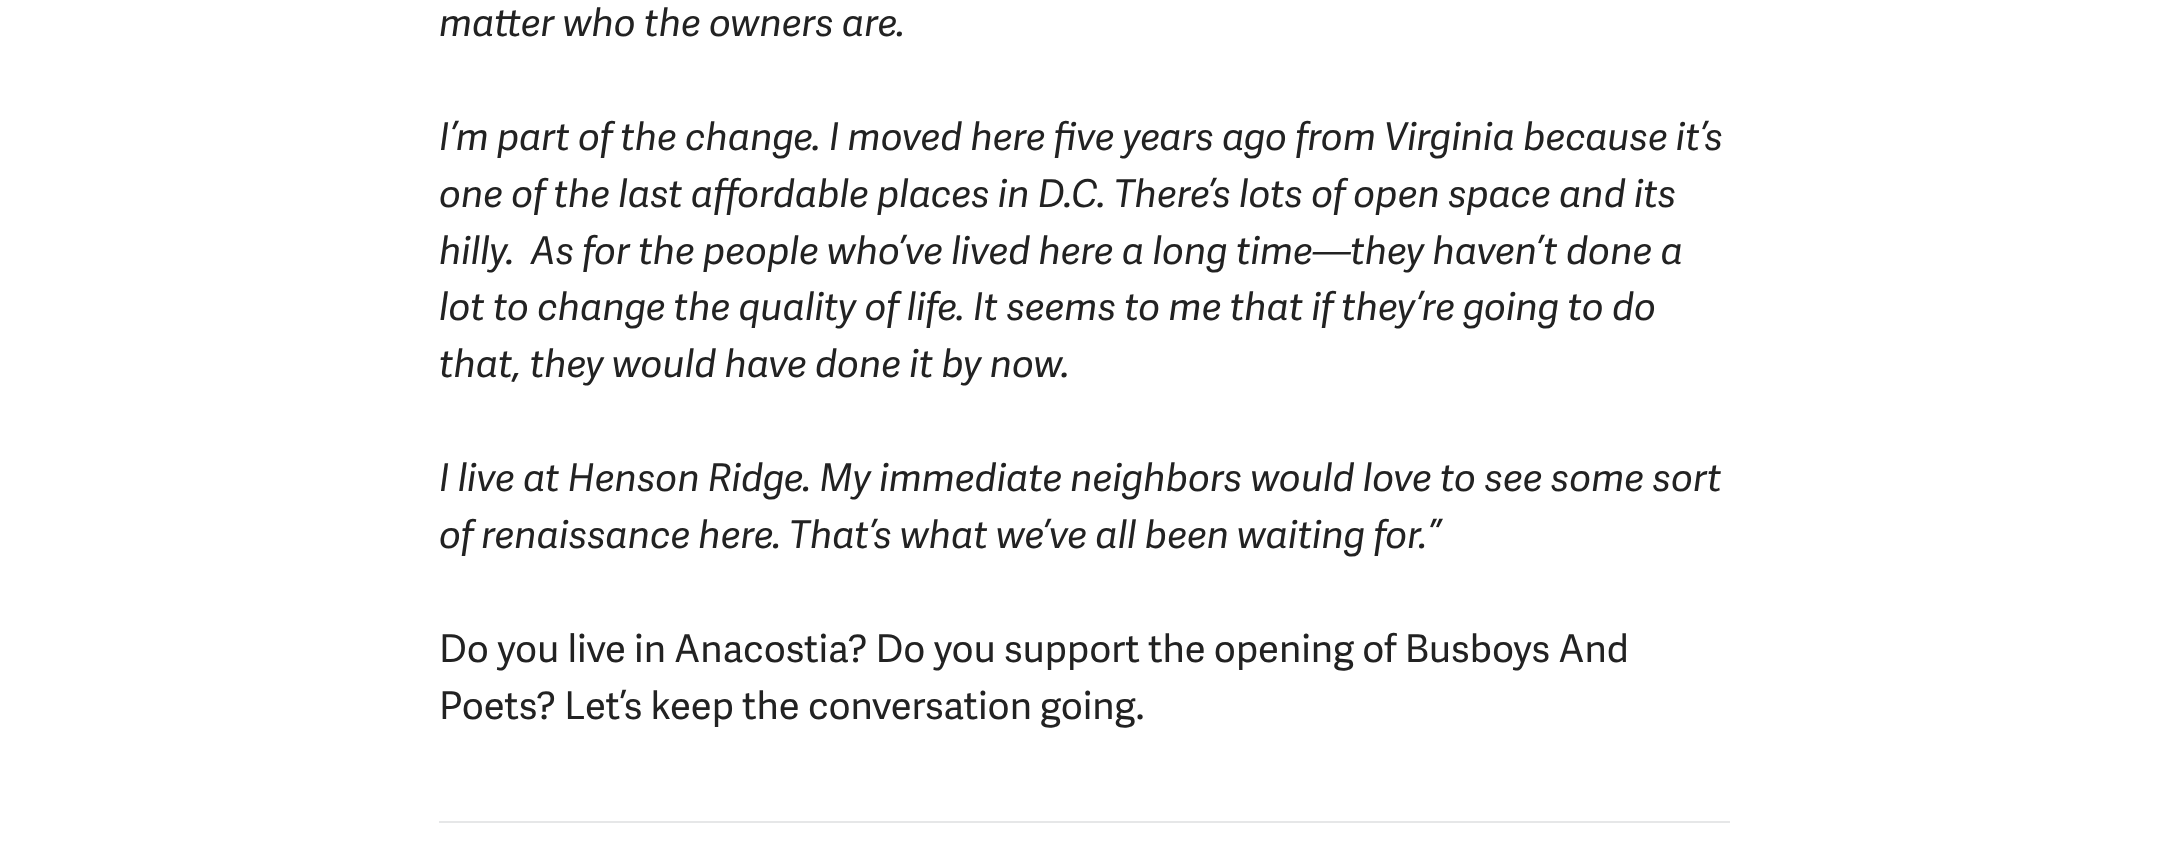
<svg xmlns="http://www.w3.org/2000/svg" width="2168" height="865">
<rect width="100%" height="100%" fill="#fff"/>
<text x="439" y="36" style="font-family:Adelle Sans;font-size:38.25px;font-style:italic;fill:#222">matter who the owners are.</text>
<text x="439" y="150" style="font-family:Adelle Sans;font-size:38.25px;font-style:italic;fill:#222">I’m part of the change. I moved here five years ago from Virginia because it’s</text>
<text x="439" y="207" style="font-family:Adelle Sans;font-size:38.25px;font-style:italic;fill:#222">one of the last affordable places in D.C. There’s lots of open space and its</text>
<text x="439" y="264" style="font-family:Adelle Sans;font-size:38.25px;font-style:italic;fill:#222" xml:space="preserve">hilly.  As for the people who’ve lived here a long time—they haven’t done a</text>
<text x="439" y="320" style="font-family:Adelle Sans;font-size:38.25px;font-style:italic;fill:#222">lot to change the quality of life. It seems to me that if they’re going to do</text>
<text x="439" y="377" style="font-family:Adelle Sans;font-size:38.25px;font-style:italic;fill:#222">that, they would have done it by now.</text>
<text x="439" y="491" style="font-family:Adelle Sans;font-size:38.25px;font-style:italic;fill:#222">I live at Henson Ridge. My immediate neighbors would love to see some sort</text>
<text x="439" y="548" style="font-family:Adelle Sans;font-size:38.25px;font-style:italic;fill:#222">of renaissance here. That’s what we’ve all been waiting for.”</text>
<text x="439" y="662" style="font-family:Adelle Sans;font-size:38.25px;fill:#222">Do you live in Anacostia? Do you support the opening of Busboys And</text>
<text x="439" y="719" style="font-family:Adelle Sans;font-size:38.25px;fill:#222">Poets? Let’s keep the conversation going.</text>
<rect x="439" y="821" width="1291" height="2" fill="#e6e7e8"/>
</svg>
